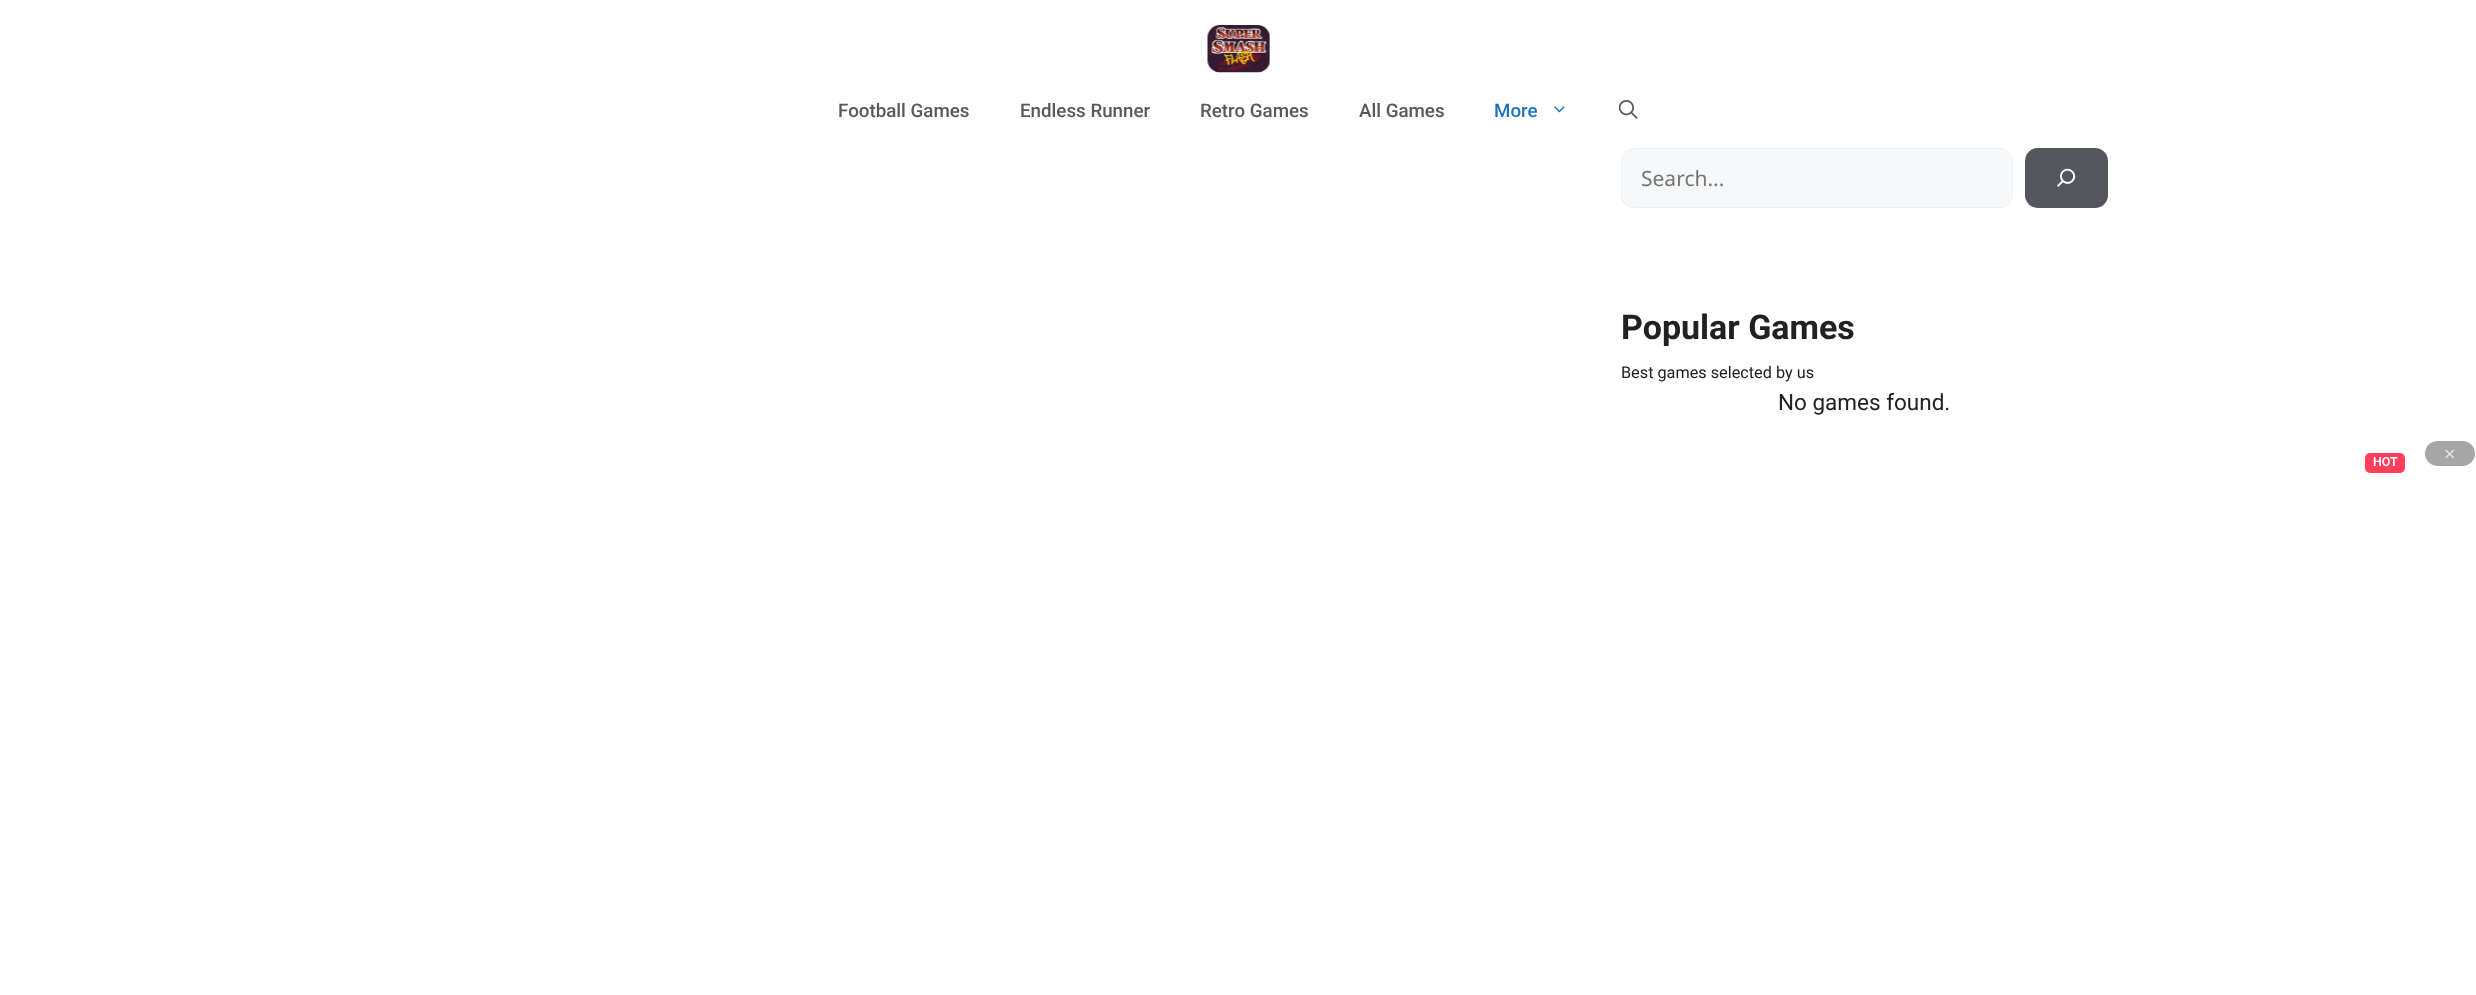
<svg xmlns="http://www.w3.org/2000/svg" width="2476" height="995">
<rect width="100%" height="100%" fill="#fff"/>
<image x="1207" y="25" width="63" height="48" href="media/1.png"/>
<text x="838" y="117" style="font-family:Roboto;font-size:18.75px;font-weight:500;fill:#575760">Football Games</text>
<text x="1020" y="117" style="font-family:Roboto;font-size:18.75px;font-weight:500;fill:#575760">Endless Runner</text>
<text x="1200" y="117" style="font-family:Roboto;font-size:18.75px;font-weight:500;fill:#575760">Retro Games</text>
<text x="1359" y="117" style="font-family:Roboto;font-size:18.75px;font-weight:500;fill:#575760">All Games</text>
<text x="1494" y="117" style="font-family:Roboto;font-size:18.75px;font-weight:500;fill:#1e73be">More</text>
<image x="1554" y="106" width="11" height="7" href="media/2.png"/>
<image x="1619" y="100" width="19" height="19" href="media/3.png"/>
<rect x="1621.5" y="148.5" width="391" height="59" rx="12.5" fill="#f7f8f9" stroke="#f0f0f0"/>
<text x="1641" y="186" style="font-family:Noto Sans;font-size:21px;fill:#757575">Search...</text>
<rect x="2025" y="148" width="83" height="60" rx="13" fill="#55555e"/>
<image x="2057" y="168" width="19" height="19" href="media/4.png"/>
<text x="1621" y="339" style="font-family:Roboto;font-size:34px;font-weight:bold;fill:#212121">Popular Games</text>
<text x="1621" y="378" style="font-family:Roboto;font-size:16.25px;fill:#212121">Best games selected by us</text>
<text x="1778" y="410" style="font-family:Roboto;font-size:22.5px;fill:#212121">No games found.</text>
<rect x="2425" y="441" width="50" height="25" rx="12.5" fill="#a6a6a6"/>
<text x="2444" y="461" style="font-family:Noto Sans;font-size:20px;fill:#e4e4e4">×</text>
<rect x="2365" y="453" width="40" height="20" rx="5" fill="#ff3f5c"/>
<text x="2373" y="466" style="font-family:Roboto;font-size:12.5px;font-weight:600;fill:#fff">HOT</text>
</svg>
